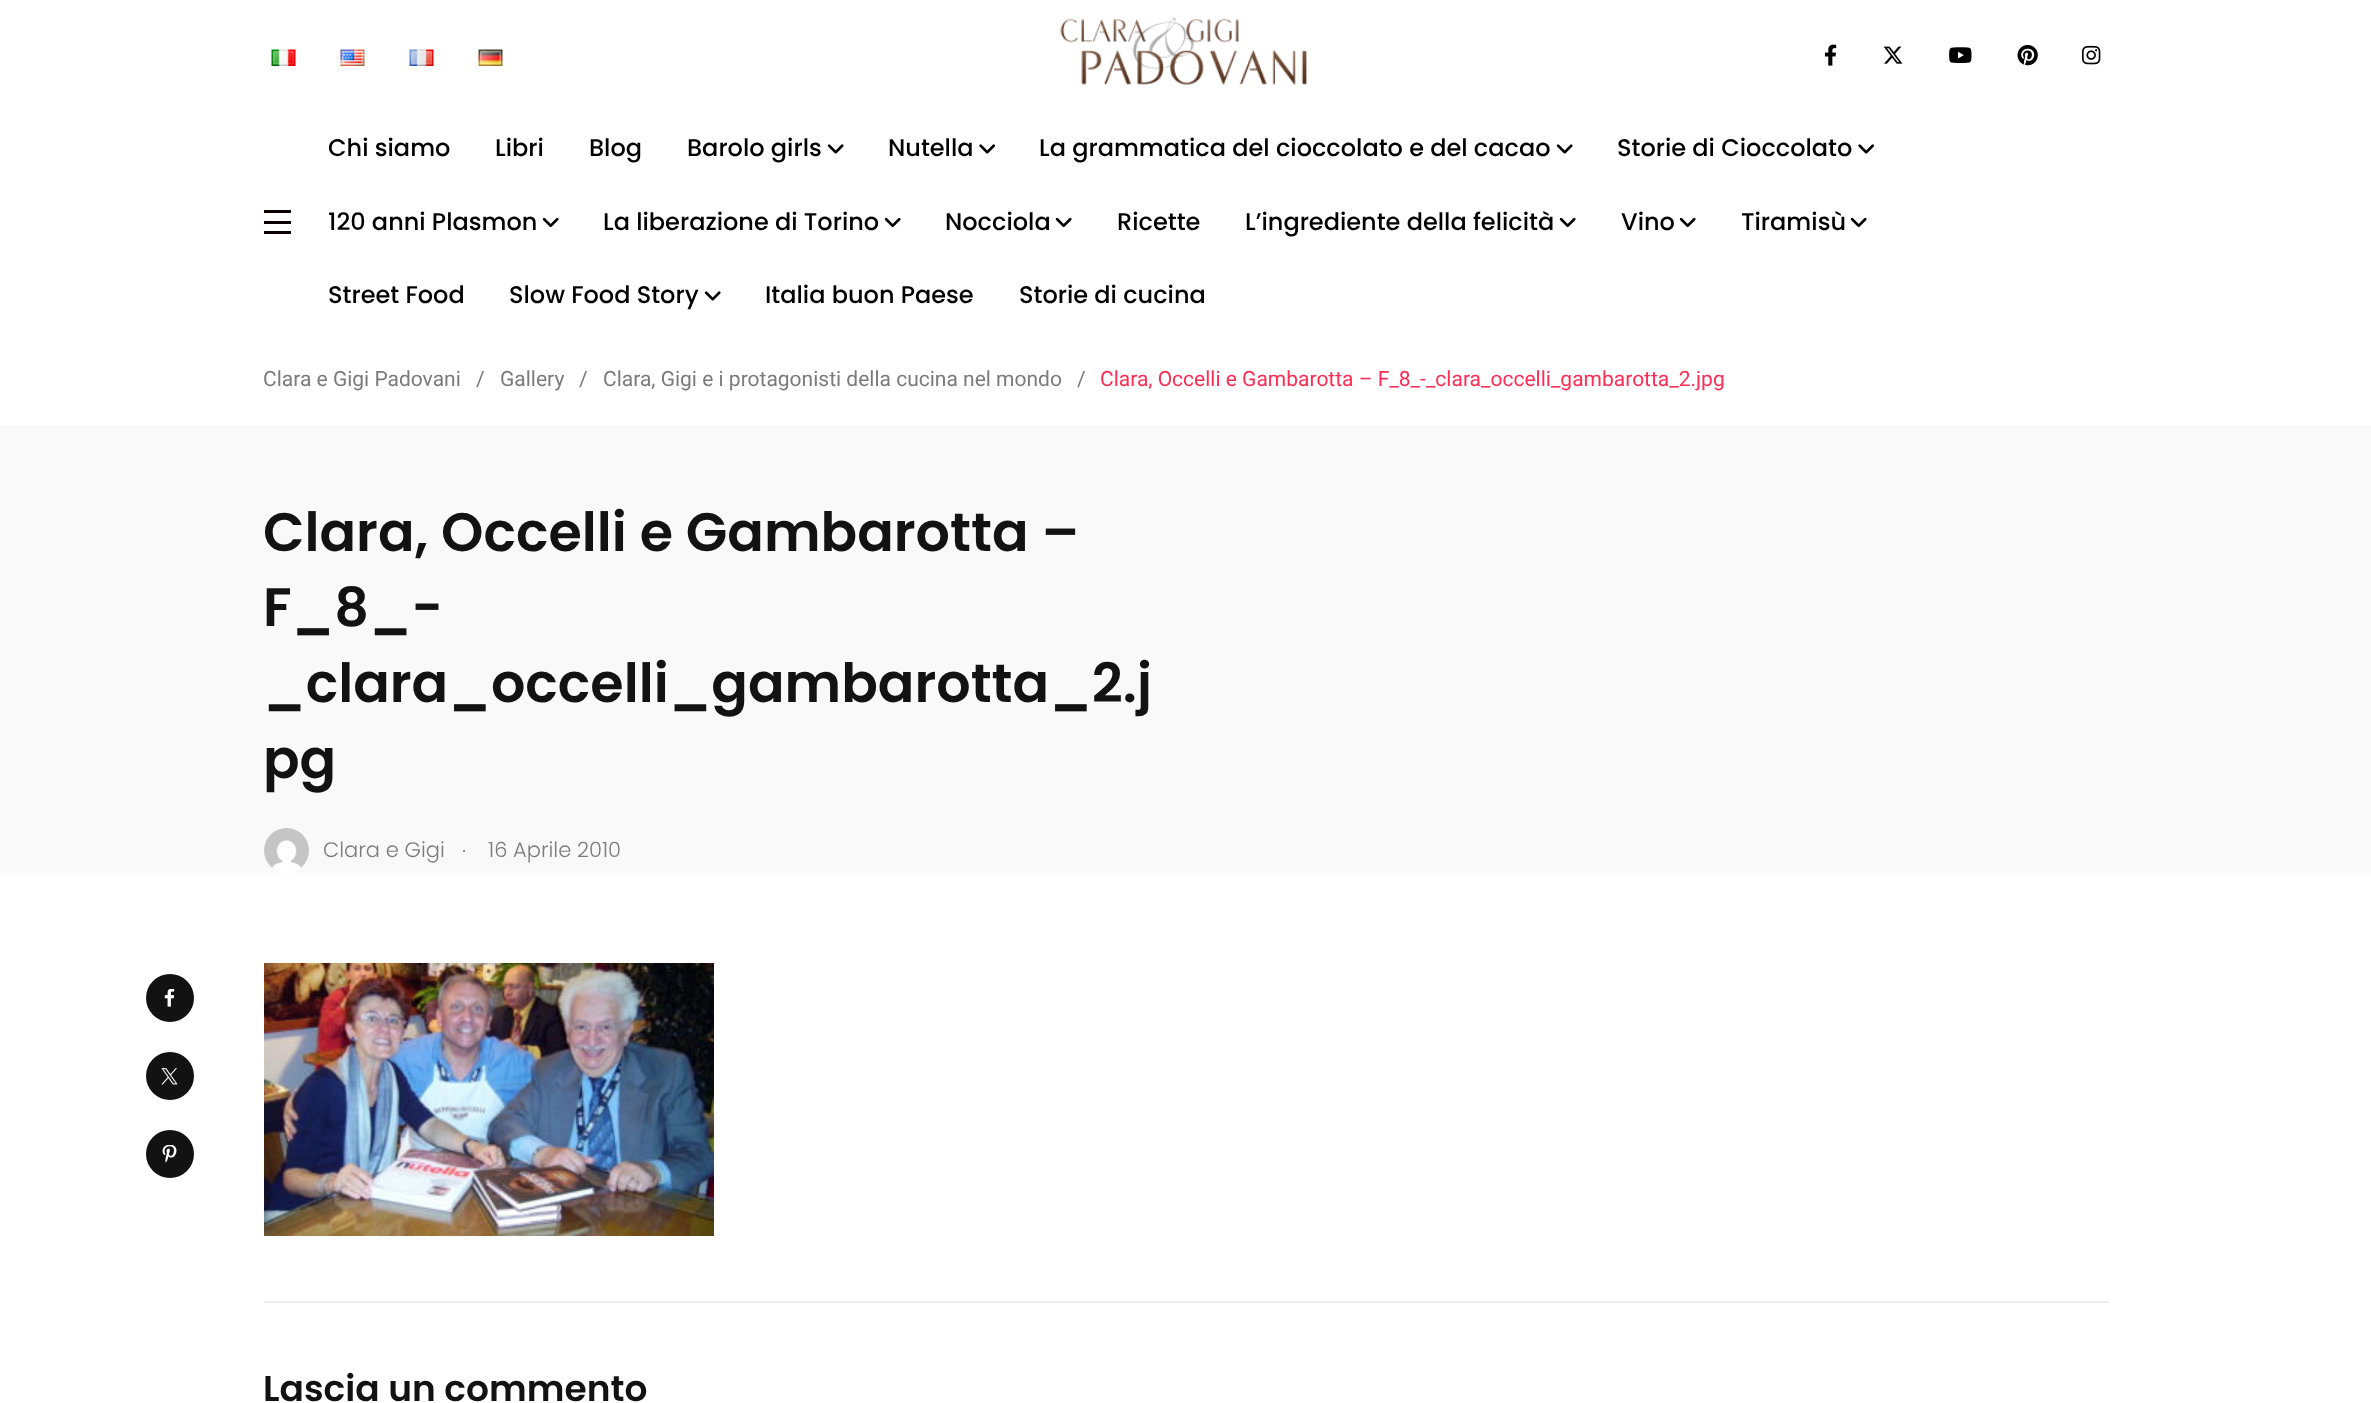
<svg xmlns="http://www.w3.org/2000/svg" width="2371" height="1403">
<rect width="100%" height="100%" fill="#fff"/>
<image x="271" y="49" width="25" height="17" href="media/1.png"/>
<image x="340" y="49" width="25" height="17" href="media/2.png"/>
<image x="409" y="49" width="25" height="17" href="media/3.png"/>
<image x="478" y="49" width="25" height="17" href="media/4.png"/>
<image x="1060" y="18" width="247" height="67" href="media/5.png"/>
<image x="1824" y="44" width="13" height="22" href="media/6.png"/>
<image x="1883" y="46" width="20" height="18" href="media/7.png"/>
<image x="1949" y="47" width="23" height="16" href="media/8.png"/>
<image x="2017" y="44" width="21" height="22" href="media/9.png"/>
<image x="2082" y="45" width="19" height="20" href="media/10.png"/>
<rect x="264" y="210" width="27" height="3" fill="#0a0000"/>
<rect x="264" y="221" width="27" height="3" fill="#0a0000"/>
<rect x="264" y="231" width="27" height="3" fill="#0a0000"/>
<text x="328" y="156" style="font-family:Poppins;font-size:24px;font-weight:500;fill:#000">Chi siamo</text>
<text x="495" y="156" style="font-family:Poppins;font-size:24px;font-weight:500;fill:#000">Libri</text>
<text x="589" y="156" style="font-family:Poppins;font-size:24px;font-weight:500;fill:#000">Blog</text>
<text x="687" y="156" style="font-family:Poppins;font-size:24px;font-weight:500;fill:#000">Barolo girls</text>
<image x="827" y="144" width="17" height="10" href="media/11.png"/>
<text x="888" y="156" style="font-family:Poppins;font-size:24px;font-weight:500;fill:#000">Nutella</text>
<image x="979" y="144" width="16" height="10" href="media/12.png"/>
<text x="1039" y="156" style="font-family:Poppins;font-size:24px;font-weight:500;fill:#000">La grammatica del cioccolato e del cacao</text>
<image x="1556" y="144" width="17" height="10" href="media/11.png"/>
<text x="1617" y="156" style="font-family:Poppins;font-size:24px;font-weight:500;fill:#000">Storie di Cioccolato</text>
<image x="1858" y="144" width="16" height="10" href="media/12.png"/>
<text x="328" y="230" style="font-family:Poppins;font-size:24px;font-weight:500;fill:#000">120 anni Plasmon</text>
<image x="542" y="217" width="17" height="10" href="media/13.png"/>
<text x="603" y="230" style="font-family:Poppins;font-size:24px;font-weight:500;fill:#000">La liberazione di Torino</text>
<image x="884" y="217" width="17" height="10" href="media/13.png"/>
<text x="945" y="230" style="font-family:Poppins;font-size:24px;font-weight:500;fill:#000">Nocciola</text>
<image x="1055" y="217" width="17" height="10" href="media/13.png"/>
<text x="1117" y="230" style="font-family:Poppins;font-size:24px;font-weight:500;fill:#000">Ricette</text>
<text x="1245" y="230" style="font-family:Poppins;font-size:24px;font-weight:500;fill:#000">L’ingrediente della felicità</text>
<image x="1559" y="217" width="17" height="10" href="media/13.png"/>
<text x="1621" y="230" style="font-family:Poppins;font-size:24px;font-weight:500;fill:#000">Vino</text>
<image x="1679" y="217" width="17" height="10" href="media/13.png"/>
<text x="1741" y="230" style="font-family:Poppins;font-size:24px;font-weight:500;fill:#000">Tiramisù</text>
<image x="1850" y="217" width="17" height="10" href="media/13.png"/>
<text x="328" y="303" style="font-family:Poppins;font-size:24px;font-weight:500;fill:#000">Street Food</text>
<text x="509" y="303" style="font-family:Poppins;font-size:24px;font-weight:500;fill:#000">Slow Food Story</text>
<image x="704" y="291" width="17" height="10" href="media/11.png"/>
<text x="765" y="303" style="font-family:Poppins;font-size:24px;font-weight:500;fill:#000">Italia buon Paese</text>
<text x="1019" y="303" style="font-family:Poppins;font-size:24px;font-weight:500;fill:#000">Storie di cucina</text>
<text x="263" y="386" style="font-family:Roboto;font-size:21px;fill:#7b7b7b">Clara e Gigi Padovani</text>
<text x="476" y="386" style="font-family:Roboto;font-size:21px;fill:#7b7b7b">/</text>
<text x="500" y="386" style="font-family:Roboto;font-size:21px;fill:#7b7b7b">Gallery</text>
<text x="579" y="386" style="font-family:Roboto;font-size:21px;fill:#7b7b7b">/</text>
<text x="603" y="386" style="font-family:Roboto;font-size:21px;fill:#7b7b7b">Clara, Gigi e i protagonisti della cucina nel mondo</text>
<text x="1077" y="386" style="font-family:Roboto;font-size:21px;fill:#7b7b7b">/</text>
<text x="1100" y="386" style="font-family:Roboto;font-size:21px;fill:#ff2c54">Clara, Occelli e Gambarotta – F_8_-_clara_occelli_gambarotta_2.jpg</text>
<rect y="425" width="2371" height="448" fill="#f9f9f9"/>
<text x="263" y="551" style="font-family:Poppins;font-size:54px;font-weight:600;fill:#121213">Clara, Occelli e Gambarotta –</text>
<text x="263" y="626" style="font-family:Poppins;font-size:54px;font-weight:600;fill:#121213">F_8_-</text>
<text x="263" y="702" style="font-family:Poppins;font-size:54px;font-weight:600;fill:#121213">_clara_occelli_gambarotta_2.j</text>
<text x="263" y="778" style="font-family:Poppins;font-size:54px;font-weight:600;fill:#121213">pg</text>
<image x="264" y="828" width="45" height="45" href="media/14.png"/>
<text x="323" y="857" style="font-family:Poppins;font-size:21px;font-weight:300;fill:#7b7b7b">Clara e Gigi</text>
<text x="463" y="852" style="font-family:Poppins;font-size:21px;font-weight:300;font-style:italic;fill:#7b7b7b">.</text>
<text x="488" y="857" style="font-family:Poppins;font-size:21px;font-weight:300;fill:#7b7b7b">16 Aprile 2010</text>
<circle cx="170" cy="998" r="24" fill="#121213"/>
<image x="164" y="989" width="11" height="18" href="media/15.png"/>
<circle cx="170" cy="1076" r="24" fill="#121213"/>
<image x="161" y="1068" width="17" height="17" href="media/16.png"/>
<circle cx="170" cy="1154" r="24" fill="#121213"/>
<image x="162" y="1145" width="15" height="18" href="media/17.png"/>
<image x="264" y="963" width="450" height="273" href="media/18.png"/>
<rect x="264" y="1301" width="1845" height="2" fill="#ebebeb"/>
<text x="263" y="1401" style="font-family:Poppins;font-size:36px;font-weight:600;fill:#121213">Lascia un commento</text>
</svg>
